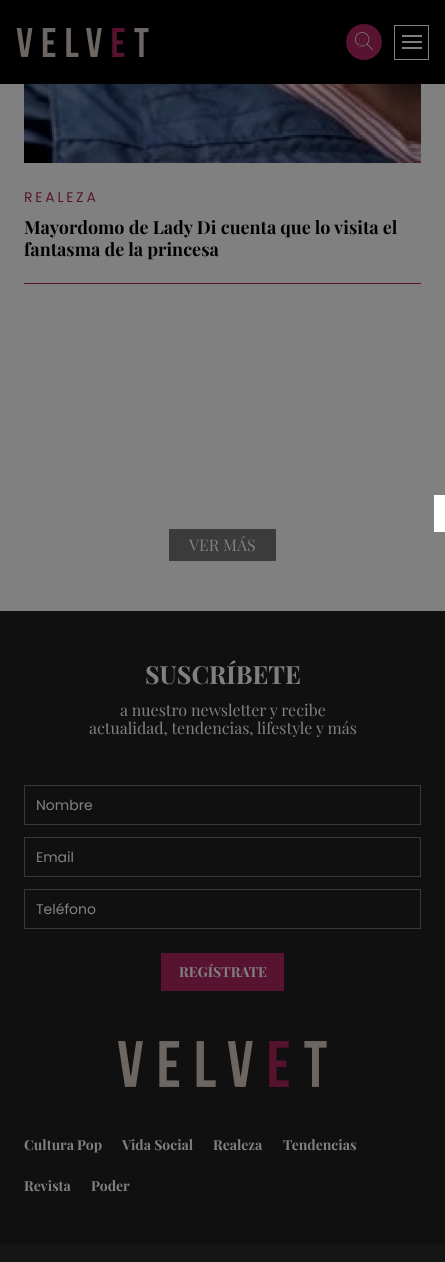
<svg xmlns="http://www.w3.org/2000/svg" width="445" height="1262">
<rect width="100%" height="100%" fill="#808080"/>
<rect width="445" height="84" fill="#000"/>
<image x="16" y="28" width="133" height="29" href="media/1.png"/>
<circle cx="364" cy="42" r="18" fill="#57132f"/>
<image x="355" y="32" width="18" height="18" href="media/2.png"/>
<text x="357" y="48" style="font-family:Playfair Display;font-size:15px;fill:#5c2139">B</text>
<rect x="394.5" y="25.5" width="34" height="34" fill="none" stroke="#808080"/>
<rect x="402" y="35" width="20" height="2" fill="#808080"/>
<rect x="402" y="41" width="20" height="2" fill="#808080"/>
<rect x="402" y="47" width="20" height="2" fill="#808080"/>
<image x="24" y="84" width="397" height="79" href="media/3.png"/>
<text x="24" y="202" style="font-family:Poppins;font-size:14px;letter-spacing:2.75px;fill:#57132f">REALEZA</text>
<text x="24" y="234" style="font-family:Playfair Display;font-size:18px;font-weight:bold;fill:#000">Mayordomo de Lady Di cuenta que lo visita el</text>
<text x="24" y="256" style="font-family:Playfair Display;font-size:18px;font-weight:bold;fill:#000">fantasma de la princesa</text>
<rect x="24" y="283" width="397" height="1" fill="#57132f"/>
<rect x="169" y="529" width="107" height="32" fill="#3b3b3b"/>
<text x="189" y="551" style="font-family:Playfair Display;font-size:16px;fill:#808080">VER MÁS</text>
<rect x="434" y="495" width="11" height="37" fill="#fff"/>
<rect y="611" width="445" height="633" fill="#101010"/>
<text x="145" y="684" style="font-family:Playfair Display;font-size:25px;font-weight:bold;fill:#808080">SUSCRÍBETE</text>
<text x="120" y="716" style="font-family:Playfair Display;font-size:16px;fill:#808080">a nuestro newsletter y recibe</text>
<text x="89" y="734" style="font-family:Playfair Display;font-size:16px;fill:#808080">actualidad, tendencias, lifestyle y más</text>
<rect x="24.5" y="785.5" width="396" height="39" fill="none" stroke="#383838"/>
<text x="36" y="810" style="font-family:Poppins;font-size:14px;fill:#808080">Nombre</text>
<rect x="24.5" y="837.5" width="396" height="39" fill="none" stroke="#383838"/>
<text x="36" y="862" style="font-family:Poppins;font-size:14px;fill:#808080">Email</text>
<rect x="24.5" y="889.5" width="396" height="39" fill="none" stroke="#383838"/>
<text x="36" y="914" style="font-family:Poppins;font-size:14px;fill:#808080">Teléfono</text>
<rect x="161" y="953" width="123" height="38" fill="#57132f"/>
<text x="179" y="977" style="font-family:Playfair Display;font-size:14px;font-weight:bold;fill:#808080">REGÍSTRATE</text>
<image x="118" y="1041" width="209" height="46" href="media/4.png"/>
<text x="24" y="1150" style="font-family:Playfair Display;font-size:14px;font-weight:bold;fill:#808080">Cultura Pop</text>
<text x="122" y="1150" style="font-family:Playfair Display;font-size:14px;font-weight:bold;fill:#808080">Vida Social</text>
<text x="213" y="1150" style="font-family:Playfair Display;font-size:14px;font-weight:bold;fill:#808080">Realeza</text>
<text x="283" y="1150" style="font-family:Playfair Display;font-size:14px;font-weight:bold;fill:#808080">Tendencias</text>
<text x="24" y="1191" style="font-family:Playfair Display;font-size:14px;font-weight:bold;fill:#808080">Revista</text>
<text x="91" y="1191" style="font-family:Playfair Display;font-size:14px;font-weight:bold;fill:#808080">Poder</text>
<rect y="1244" width="445" height="18" fill="#151515"/>
</svg>
